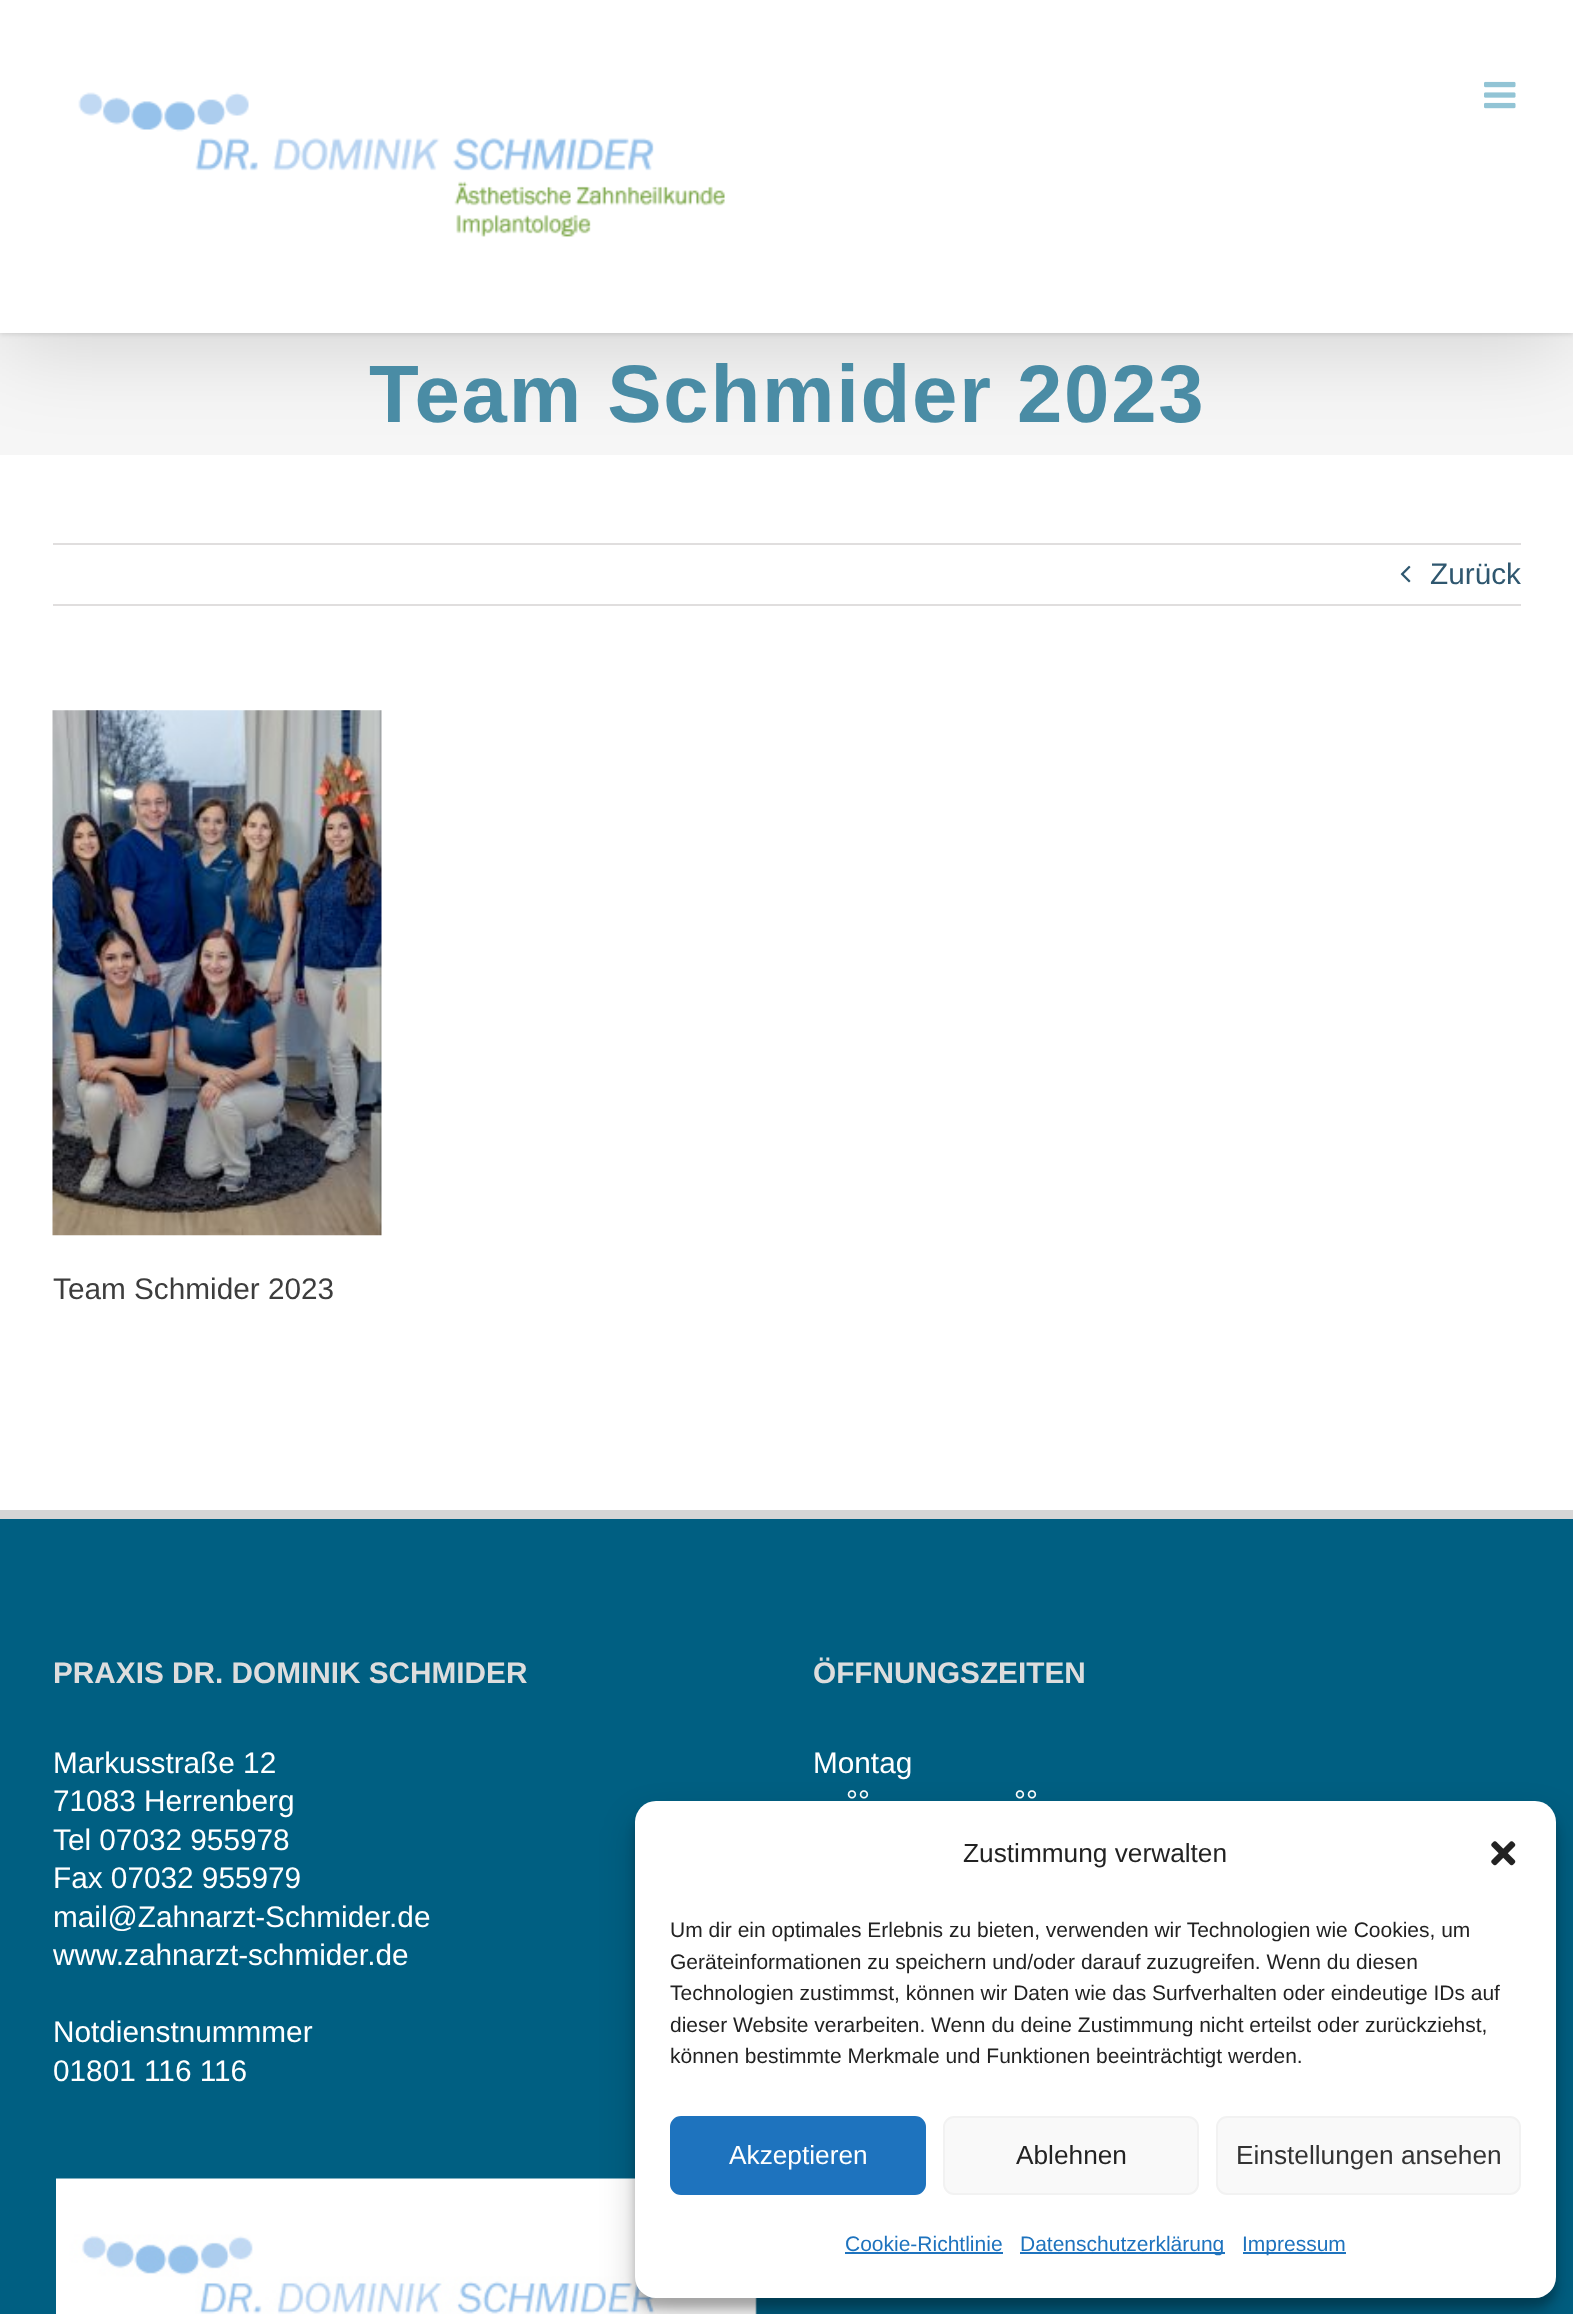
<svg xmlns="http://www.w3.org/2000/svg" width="1573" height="2314">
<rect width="100%" height="100%" fill="#fff"/>
<rect y="333" width="1573" height="122" fill="#f6f6f6"/>
<rect x="4" y="-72" width="1566" height="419" fill="#00000024" filter="blur(44px)"/>
<rect y="2" width="1573" height="332" fill="#0000001f" filter="blur(2.5px)"/>
<rect width="1573" height="333" fill="#fff"/>
<image x="78" y="92" width="647" height="145" href="media/1.png"/>
<image x="1484" y="81" width="32" height="28" href="media/2.png"/>
<text x="369" y="422" style="font-family:Liberation Sans;font-size:81.5px;font-weight:bold;letter-spacing:1.75px;fill:#4a8ca5">Team Schmider 2023</text>
<rect x="53" y="543" width="1468" height="2" fill="#e0dede"/>
<rect x="53" y="604" width="1468" height="2" fill="#e0dede"/>
<image x="1400" y="565" width="11" height="18" href="media/3.png"/>
<text x="1430" y="584" style="font-family:Liberation Sans;font-size:29.75px;fill:#2f576f">Zurück</text>
<image x="52" y="710" width="330" height="526" href="media/4.png"/>
<text x="53" y="1299" style="font-family:Liberation Sans;font-size:29.75px;fill:#3d3d3d">Team Schmider 2023</text>
<rect y="1519" width="1573" height="795" fill="#005f82"/>
<rect y="1510" width="1573" height="9" fill="#d6d6d6"/>
<text x="53" y="1683" style="font-family:Liberation Sans;font-size:29.75px;font-weight:bold;fill:#ddd">PRAXIS DR. DOMINIK SCHMIDER</text>
<text x="53" y="1773" style="font-family:Liberation Sans;font-size:29.75px;fill:#fff">Markusstraße 12</text>
<text x="53" y="1811" style="font-family:Liberation Sans;font-size:29.75px;fill:#fff">71083 Herrenberg</text>
<text x="53" y="1850" style="font-family:Liberation Sans;font-size:29.75px;fill:#fff">Tel 07032 955978</text>
<text x="53" y="1888" style="font-family:Liberation Sans;font-size:29.75px;fill:#fff">Fax 07032 955979</text>
<text x="53" y="1927" style="font-family:Liberation Sans;font-size:29.75px;fill:#fff">mail@Zahnarzt-Schmider.de</text>
<text x="53" y="1965" style="font-family:Liberation Sans;font-size:29.75px;fill:#fff">www.zahnarzt-schmider.de</text>
<text x="53" y="2042" style="font-family:Liberation Sans;font-size:29.75px;fill:#fff">Notdienstnummmer</text>
<text x="53" y="2081" style="font-family:Liberation Sans;font-size:29.75px;fill:#fff">01801 116 116</text>
<image x="56" y="2178" width="701" height="136" href="media/5.png"/>
<text x="813" y="1683" style="font-family:Liberation Sans;font-size:29.75px;font-weight:bold;fill:#ddd">ÖFFNUNGSZEITEN</text>
<text x="813" y="1773" style="font-family:Liberation Sans;font-size:29.75px;fill:#fff">Montag</text>
<text x="846" y="1811" style="font-family:Liberation Sans;font-size:29.75px;fill:#fff">°°</text>
<text x="1014" y="1811" style="font-family:Liberation Sans;font-size:29.75px;fill:#fff">°°</text>
<rect x="635" y="1811" width="921" height="497" rx="21" fill="#0000003b" filter="blur(5px)"/>
<rect x="635" y="1818" width="921" height="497" rx="21" fill="#00000030" filter="blur(17.5px)"/>
<rect x="635" y="1801" width="921" height="497" rx="21" fill="#fff"/>
<text x="963" y="1862" style="font-family:Liberation Sans;font-size:26.25px;fill:#222">Zustimmung verwalten</text>
<image x="1491" y="1841" width="25" height="25" href="media/6.png"/>
<text x="670" y="1937" style="font-family:Liberation Sans;font-size:21px;fill:#222">Um dir ein optimales Erlebnis zu bieten, verwenden wir Technologien wie Cookies, um</text>
<text x="670" y="1969" style="font-family:Liberation Sans;font-size:21px;fill:#222">Geräteinformationen zu speichern und/oder darauf zuzugreifen. Wenn du diesen</text>
<text x="670" y="2000" style="font-family:Liberation Sans;font-size:21px;fill:#222">Technologien zustimmst, können wir Daten wie das Surfverhalten oder eindeutige IDs auf</text>
<text x="670" y="2032" style="font-family:Liberation Sans;font-size:21px;fill:#222">dieser Website verarbeiten. Wenn du deine Zustimmung nicht erteilst oder zurückziehst,</text>
<text x="670" y="2063" style="font-family:Liberation Sans;font-size:21px;fill:#222">können bestimmte Merkmale und Funktionen beeinträchtigt werden.</text>
<rect x="671" y="2117" width="254" height="77" rx="10" fill="#1e73be" stroke="#1e73be" stroke-width="2"/>
<text x="729" y="2164" style="font-family:Liberation Sans;font-size:26.25px;fill:#fff">Akzeptieren</text>
<rect x="944" y="2117" width="254" height="77" rx="10" fill="#f9f9f9" stroke="#f2f2f2" stroke-width="2"/>
<text x="1016" y="2164" style="font-family:Liberation Sans;font-size:26.25px;fill:#222">Ablehnen</text>
<rect x="1217" y="2117" width="303" height="77" rx="10" fill="#f9f9f9" stroke="#f2f2f2" stroke-width="2"/>
<text x="1236" y="2164" style="font-family:Liberation Sans;font-size:26.25px;fill:#333">Einstellungen ansehen</text>
<text x="845" y="2251" style="font-family:Liberation Sans;font-size:21px;fill:#1e73be">Cookie-Richtlinie</text>
<rect x="845" y="2252" width="158" height="2" fill="#1e73be"/>
<rect x="1020" y="2252" width="205" height="2" fill="#1e73be"/>
<text x="1020" y="2251" style="font-family:Liberation Sans;font-size:21px;fill:#1e73be">Datenschutzerklärung</text>
<rect x="1243" y="2252" width="103" height="2" fill="#1e73be"/>
<text x="1242" y="2251" style="font-family:Liberation Sans;font-size:21px;fill:#1e73be">Impressum</text>
</svg>
